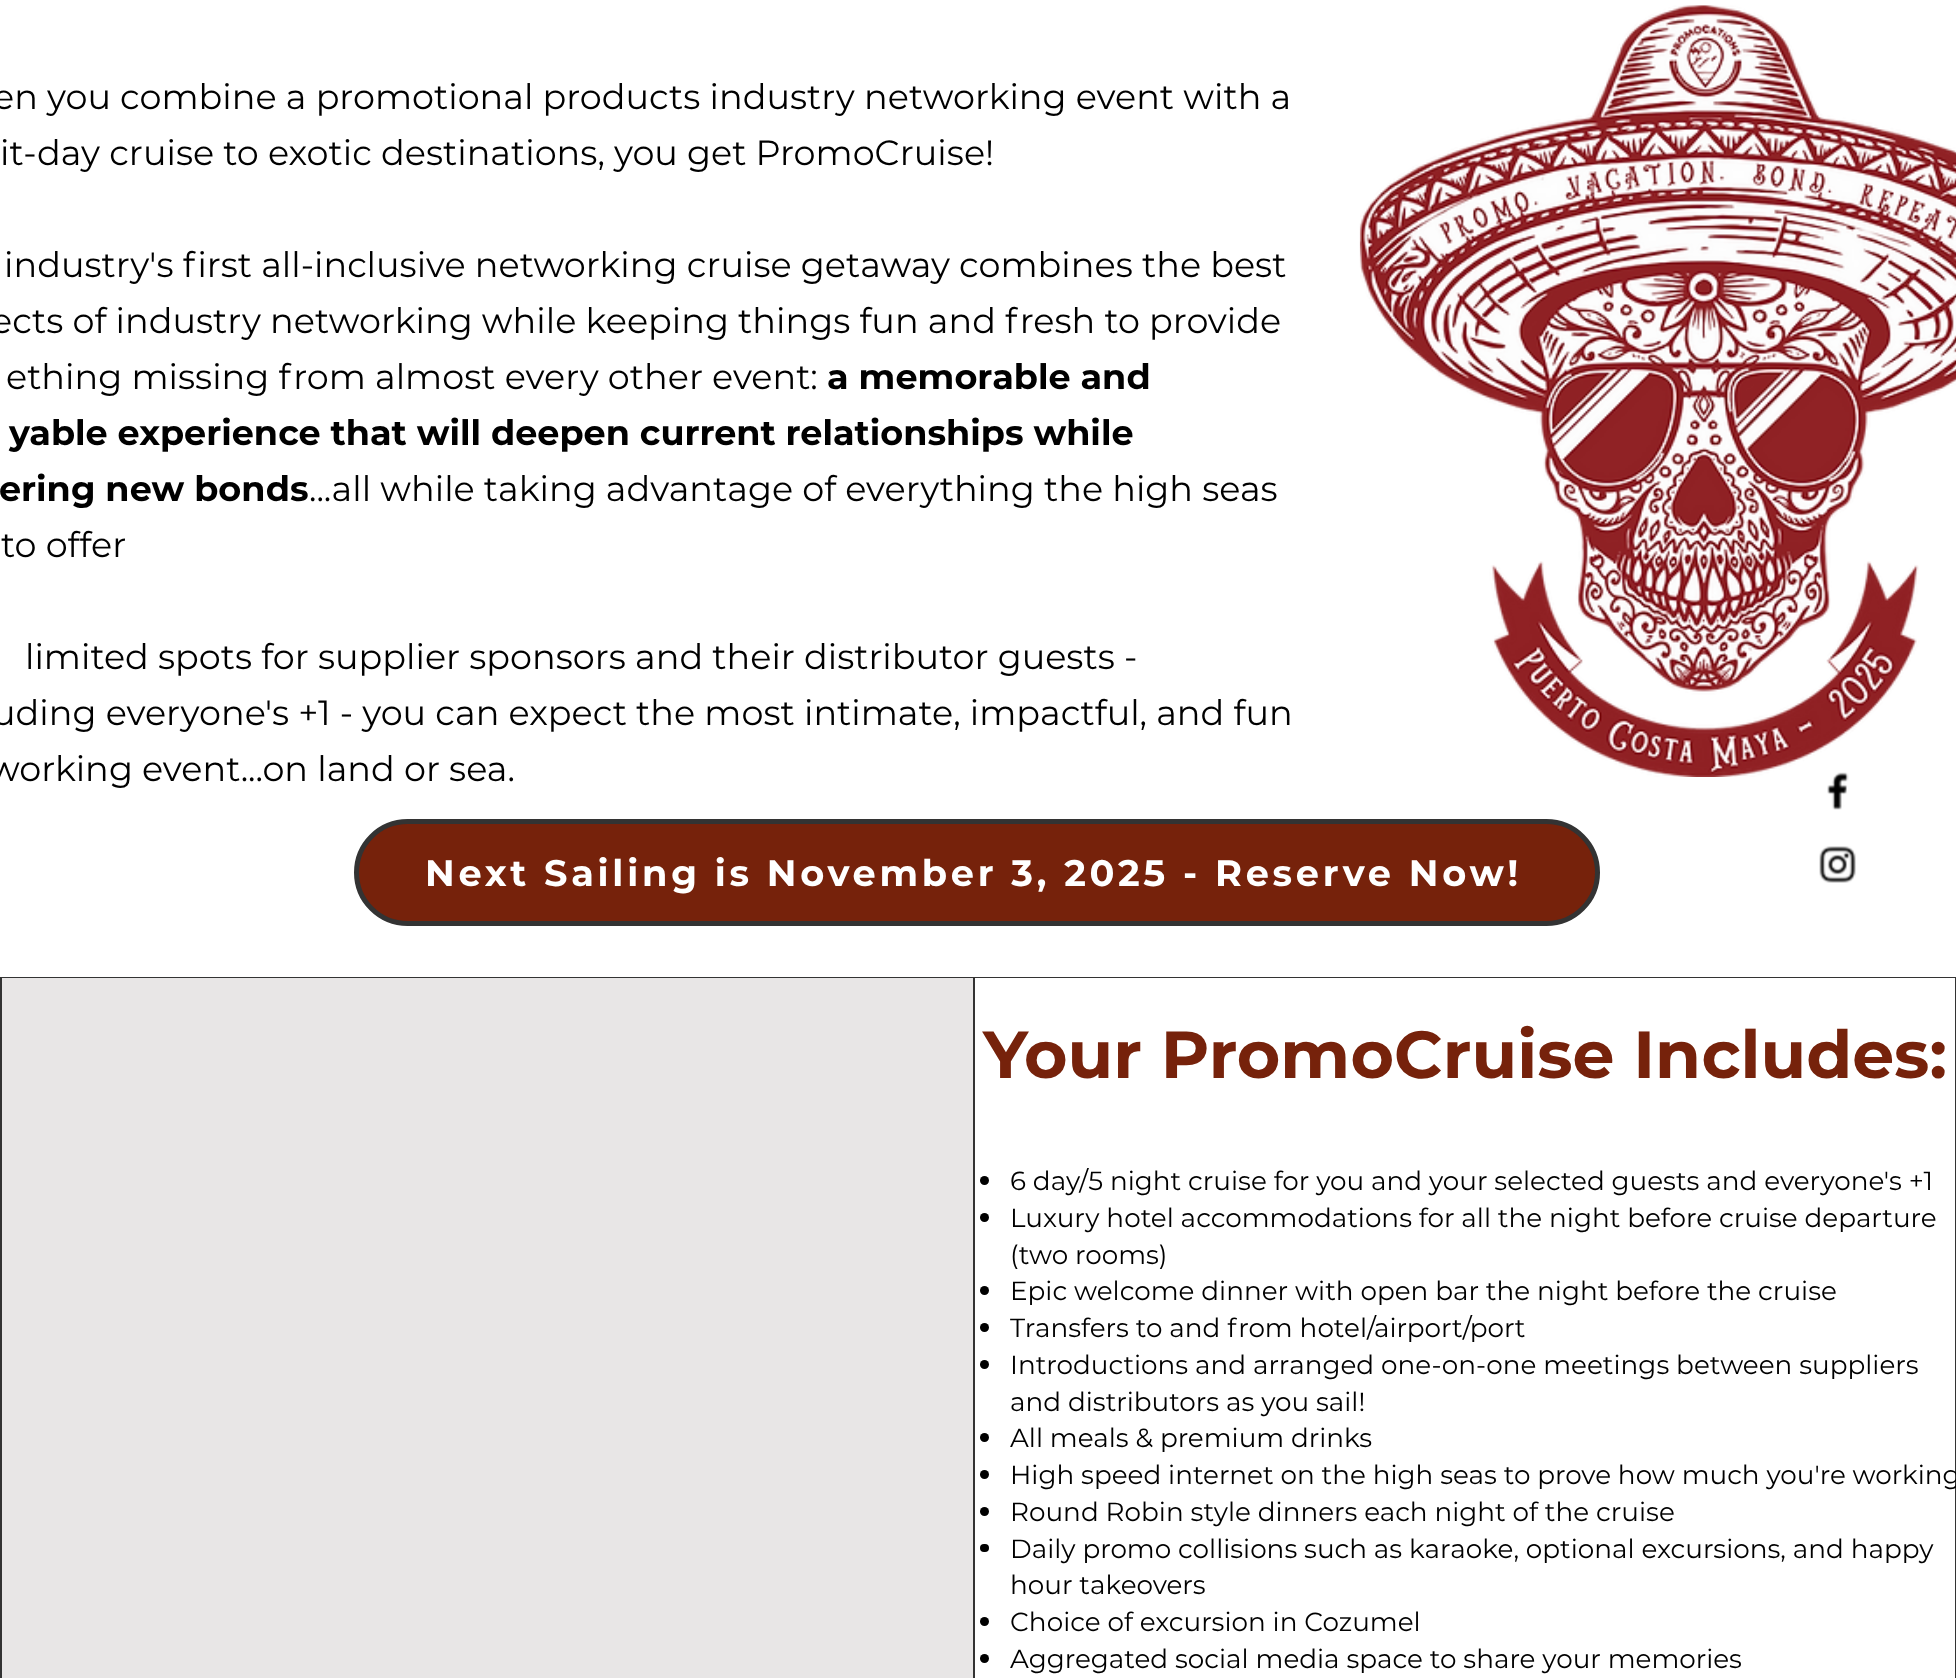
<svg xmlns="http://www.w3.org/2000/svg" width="1956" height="1678">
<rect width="100%" height="100%" fill="#fff"/>
<text x="-7" y="109" style="font-family:Montserrat;font-size:35px;fill:#000">en you combine a promotional products industry networking event with a</text>
<text x="0" y="165" style="font-family:Montserrat;font-size:35px;fill:#000">it-day cruise to exotic destinations, you get PromoCruise!</text>
<text x="4" y="277" style="font-family:Montserrat;font-size:35px;fill:#000">industry's first all-inclusive networking cruise getaway combines the best</text>
<text x="-9" y="333" style="font-family:Montserrat;font-size:35px;fill:#000">ects of industry networking while keeping things fun and fresh to provide</text>
<text x="6" y="389" style="font-family:Montserrat;font-size:35px;fill:#000">ething missing from almost every other event:</text>
<text x="827" y="389" style="font-family:Montserrat;font-size:35px;font-weight:bold;fill:#000">a memorable and</text>
<text x="9" y="445" style="font-family:Montserrat;font-size:35px;font-weight:bold;fill:#000">yable experience that will deepen current relationships while</text>
<text x="-1" y="501" style="font-family:Montserrat;font-size:35px;font-weight:bold;fill:#000">ering new bonds</text>
<text x="309" y="501" style="font-family:Montserrat;font-size:35px;fill:#000">...all while taking advantage of everything the high seas</text>
<text x="1" y="557" style="font-family:Montserrat;font-size:35px;fill:#000">to offer</text>
<text x="25" y="669" style="font-family:Montserrat;font-size:35px;fill:#000">limited spots for supplier sponsors and their distributor guests -</text>
<text x="-8" y="725" style="font-family:Montserrat;font-size:35px;fill:#000">uding everyone's +1 - you can expect the most intimate, impactful, and fun</text>
<text x="-11" y="781" style="font-family:Montserrat;font-size:35px;fill:#000">working event...on land or sea.</text>
<image x="1359" y="5" width="597" height="772" href="media/1.png"/>
<rect x="356.5" y="821.5" width="1241" height="102" rx="51" fill="#76220b" stroke="#333" stroke-width="5"/>
<text x="425" y="886" style="font-family:Montserrat;font-size:36.75px;font-weight:bold;letter-spacing:3.7px;fill:#fff">Next Sailing is November 3, 2025 - Reserve Now!</text>
<rect y="977" width="1956" height="701" fill="#333"/>
<rect x="2" y="978" width="971" height="700" fill="#e8e6e6"/>
<rect x="975" y="978" width="980" height="700" fill="#fff"/>
<text x="983" y="1078" style="font-family:Montserrat;font-size:66.5px;font-weight:bold;fill:#76220b">Your PromoCruise Includes:</text>
<circle cx="984.5" cy="1180.5" r="4.5" fill="#000"/>
<text x="1010" y="1190" style="font-family:Montserrat;font-size:26.25px;fill:#000">6 day/5 night cruise for you and your selected guests and everyone's +1</text>
<circle cx="984.5" cy="1217.5" r="4.5" fill="#000"/>
<text x="1010" y="1227" style="font-family:Montserrat;font-size:26.25px;fill:#000">Luxury hotel accommodations for all the night before cruise departure</text>
<text x="1010" y="1264" style="font-family:Montserrat;font-size:26.25px;fill:#000">(two rooms)</text>
<circle cx="984.5" cy="1290.5" r="4.5" fill="#000"/>
<text x="1010" y="1300" style="font-family:Montserrat;font-size:26.25px;fill:#000">Epic welcome dinner with open bar the night before the cruise</text>
<circle cx="984.5" cy="1327.5" r="4.5" fill="#000"/>
<text x="1010" y="1337" style="font-family:Montserrat;font-size:26.25px;fill:#000">Transfers to and from hotel/airport/port</text>
<circle cx="984.5" cy="1364.5" r="4.5" fill="#000"/>
<text x="1010" y="1374" style="font-family:Montserrat;font-size:26.25px;fill:#000">Introductions and arranged one-on-one meetings between suppliers</text>
<text x="1010" y="1411" style="font-family:Montserrat;font-size:26.25px;fill:#000">and distributors as you sail!</text>
<circle cx="984.5" cy="1437.5" r="4.5" fill="#000"/>
<text x="1010" y="1447" style="font-family:Montserrat;font-size:26.25px;fill:#000">All meals &amp; premium drinks</text>
<circle cx="984.5" cy="1474.5" r="4.5" fill="#000"/>
<text x="1010" y="1484" style="font-family:Montserrat;font-size:26.25px;fill:#000">High speed internet on the high seas to prove how much you're working</text>
<circle cx="984.5" cy="1511.5" r="4.5" fill="#000"/>
<text x="1010" y="1521" style="font-family:Montserrat;font-size:26.25px;fill:#000">Round Robin style dinners each night of the cruise</text>
<rect x="980" y="1544" width="9" height="8" rx="4" fill="#000"/>
<text x="1010" y="1558" style="font-family:Montserrat;font-size:26.25px;fill:#000">Daily promo collisions such as karaoke, optional excursions, and happy</text>
<text x="1010" y="1594" style="font-family:Montserrat;font-size:26.25px;fill:#000">hour takeovers</text>
<circle cx="984.5" cy="1621.5" r="4.5" fill="#000"/>
<text x="1010" y="1631" style="font-family:Montserrat;font-size:26.25px;fill:#000">Choice of excursion in Cozumel</text>
<circle cx="984.5" cy="1658.5" r="4.5" fill="#000"/>
<text x="1010" y="1668" style="font-family:Montserrat;font-size:26.25px;fill:#000">Aggregated social media space to share your memories</text>
<image x="1827" y="772" width="22" height="38" href="media/2.png"/>
<image x="1819" y="846" width="37" height="37" href="media/3.png"/>
</svg>
